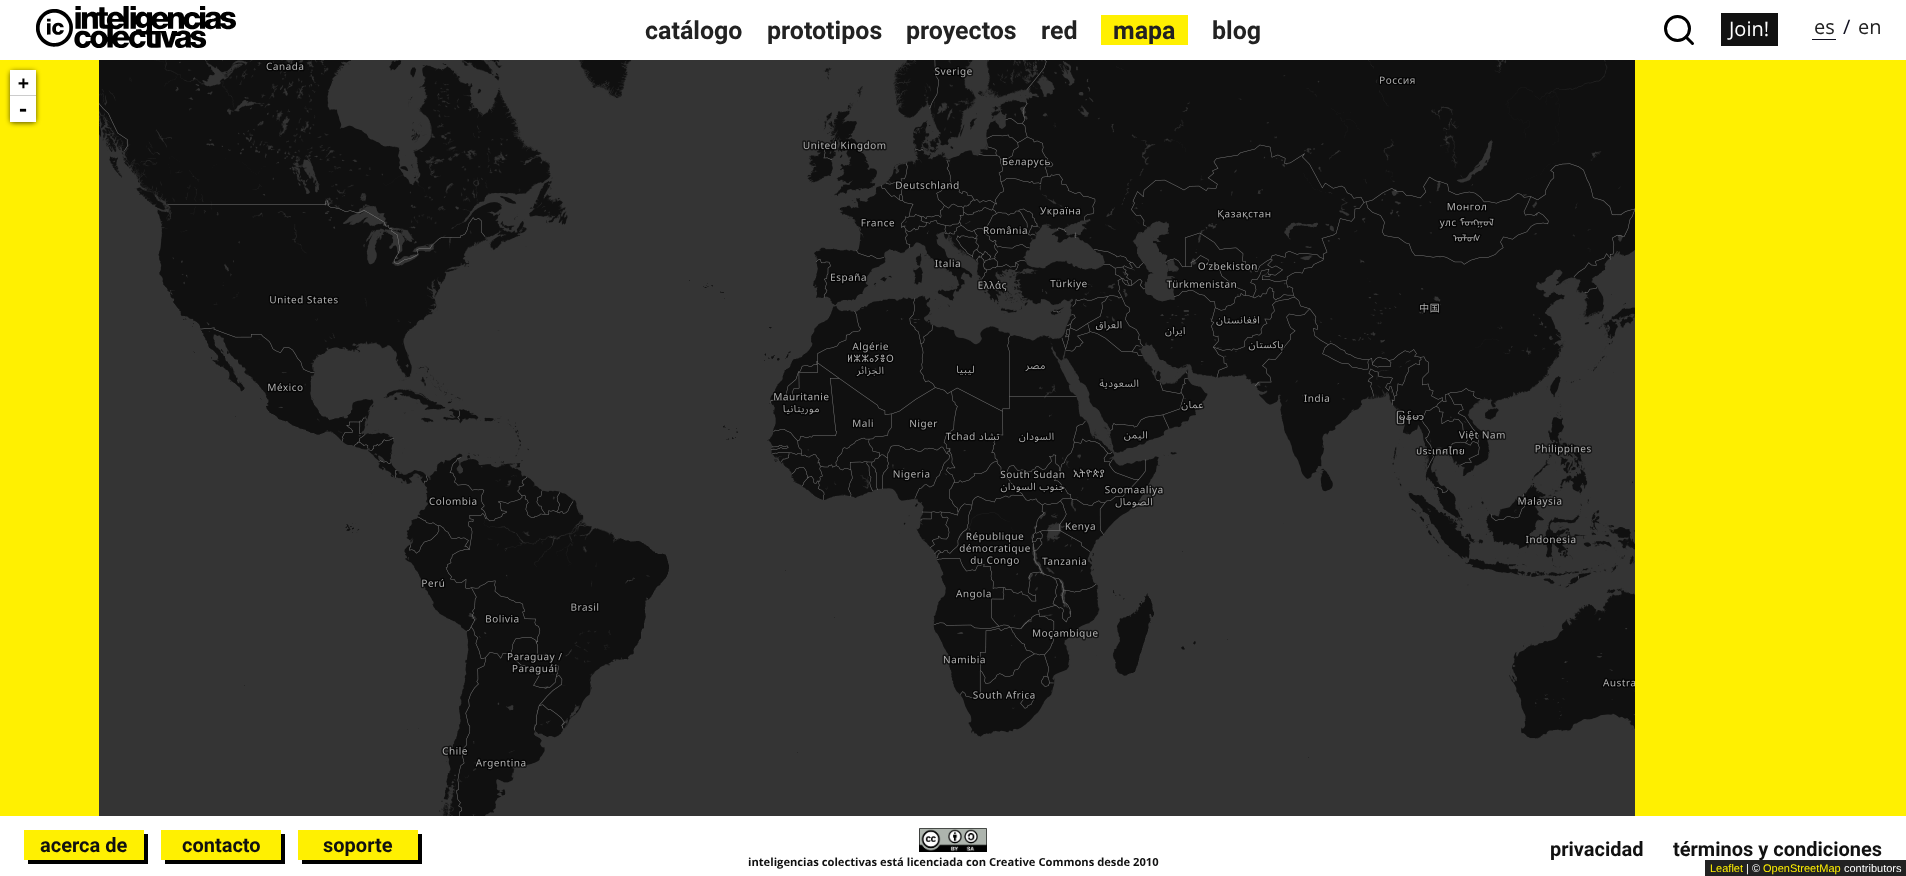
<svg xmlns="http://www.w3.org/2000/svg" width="1906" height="876">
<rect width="100%" height="100%" fill="#fff"/>
<image x="36" y="6" width="200" height="42" href="media/1.png"/>
<text x="645" y="39" style="font-family:Roboto;font-size:25px;font-weight:bold;fill:#222">catálogo</text>
<text x="767" y="39" style="font-family:Roboto;font-size:25px;font-weight:bold;fill:#222">prototipos</text>
<text x="906" y="39" style="font-family:Roboto;font-size:25px;font-weight:bold;fill:#222">proyectos</text>
<text x="1041" y="39" style="font-family:Roboto;font-size:25px;font-weight:bold;fill:#222">red</text>
<rect x="1101" y="15" width="87" height="30" fill="#fff001"/>
<text x="1113" y="39" style="font-family:Roboto;font-size:25px;font-weight:bold;fill:#222">mapa</text>
<text x="1212" y="39" style="font-family:Roboto;font-size:25px;font-weight:bold;fill:#222">blog</text>
<circle cx="1677.5" cy="28.5" r="12" fill="none" stroke="#000" stroke-width="3"/>
<path d="M1692.5 43.5l-6.5-6.5" fill="none" stroke="#000" stroke-width="3" stroke-linecap="round" stroke-linejoin="round"/>
<rect x="1721" y="13" width="57" height="33" fill="#111"/>
<text x="1729" y="36" style="font-family:Open Sans;font-size:20px;fill:#fff">Join!</text>
<text x="1814" y="34" style="font-family:Open Sans;font-size:20px;fill:#222">es</text>
<text x="1843" y="34" style="font-family:Open Sans;font-size:20px;fill:#0f0f1e">/</text>
<rect x="1812" y="39" width="24" height="1" fill="#0f0f1e"/>
<text x="1858" y="34" style="font-family:Open Sans;font-size:20px;fill:#222">en</text>
<rect y="60" width="1906" height="756" fill="#fff001"/>
<image x="99" y="60" width="256" height="209" href="media/2.png"/>
<image x="355" y="60" width="256" height="209" href="media/3.png"/>
<image x="611" y="60" width="256" height="209" href="media/4.png"/>
<image x="867" y="60" width="256" height="209" href="media/5.png"/>
<image x="1123" y="60" width="256" height="209" href="media/6.png"/>
<image x="1379" y="60" width="256" height="209" href="media/7.png"/>
<image x="99" y="269" width="256" height="256" href="media/8.png"/>
<image x="355" y="269" width="256" height="256" href="media/9.png"/>
<image x="611" y="269" width="256" height="256" href="media/10.png"/>
<image x="867" y="269" width="256" height="256" href="media/11.png"/>
<image x="1123" y="269" width="256" height="256" href="media/12.png"/>
<image x="1379" y="269" width="256" height="256" href="media/13.png"/>
<image x="99" y="525" width="256" height="256" href="media/14.png"/>
<image x="355" y="525" width="256" height="256" href="media/15.png"/>
<image x="611" y="525" width="256" height="256" href="media/16.png"/>
<image x="867" y="525" width="256" height="256" href="media/17.png"/>
<image x="1123" y="525" width="256" height="256" href="media/18.png"/>
<image x="1379" y="525" width="256" height="256" href="media/19.png"/>
<rect x="99" y="781" width="256" height="35" fill="#343434"/>
<image x="355" y="781" width="256" height="35" href="media/20.png"/>
<rect x="611" y="781" width="512" height="35" fill="#343434"/>
<image x="1123" y="781" width="256" height="35" href="media/21.png"/>
<rect x="1379" y="781" width="256" height="35" fill="#343434"/>
<rect x="10" y="71" width="26" height="52" rx="4" fill="#000000a6" filter="blur(2.5px)"/>
<rect x="10" y="70" width="26" height="25" fill="#fff"/>
<rect x="10" y="95" width="26" height="1" fill="#ccc"/>
<text x="18" y="89" style="font-family:DejaVu Sans Mono;font-size:18px;font-weight:bold;fill:#000">+</text>
<rect x="10" y="96" width="26" height="26" fill="#fff"/>
<text x="17" y="116" style="font-family:DejaVu Sans Mono;font-size:20px;font-weight:bold;fill:#000">-</text>
<text x="1673" y="856" style="font-family:Roboto;font-size:20px;font-weight:bold;fill:#111">términos y condiciones</text>
<rect x="1705" y="860" width="201" height="16" fill="#222"/>
<text x="1710" y="872" style="font-family:Liberation Sans;font-size:11px;fill:#fff001">Leaflet</text>
<text x="1746" y="872" style="font-family:Liberation Sans;font-size:11px;fill:#fff">| ©</text>
<text x="1763" y="872" style="font-family:Liberation Sans;font-size:11px;fill:#fff001">OpenStreetMap</text>
<text x="1844" y="872" style="font-family:Liberation Sans;font-size:11px;fill:#fff">contributors</text>
<path d="M28 860v4h120v-30h-4v26z" fill="#000"/>
<rect x="24" y="830" width="120" height="30" fill="#fff001"/>
<text x="40" y="852" style="font-family:Roboto;font-size:20px;font-weight:bold;fill:#111">acerca de</text>
<path d="M165 860v4h120v-30h-4v26z" fill="#000"/>
<rect x="161" y="830" width="120" height="30" fill="#fff001"/>
<text x="182" y="852" style="font-family:Roboto;font-size:20px;font-weight:bold;fill:#111">contacto</text>
<path d="M302 860v4h120v-30h-4v26z" fill="#000"/>
<rect x="298" y="830" width="120" height="30" fill="#fff001"/>
<text x="323" y="852" style="font-family:Roboto;font-size:20px;font-weight:bold;fill:#111">soporte</text>
<text x="1550" y="856" style="font-family:Roboto;font-size:20px;font-weight:bold;fill:#111">privacidad</text>
<image x="919" y="828" width="68" height="24" href="media/22.png"/>
<text x="748" y="866" style="font-family:Open Sans;font-size:11.2px;font-weight:bold;fill:#111">inteligencias colectivas está licenciada con Creative Commons desde 2010</text>
</svg>
